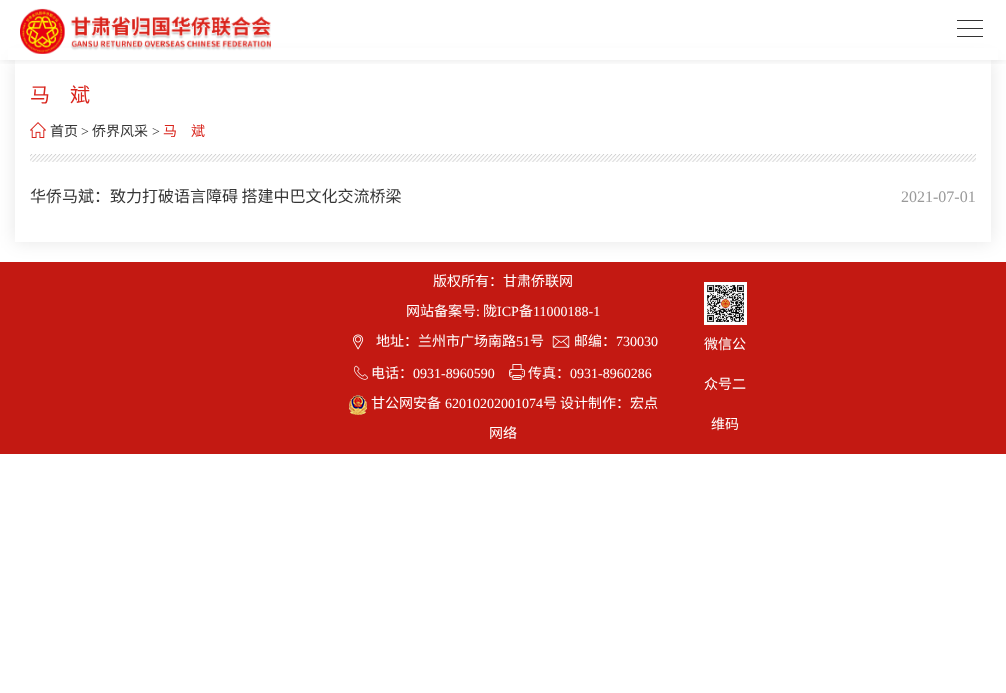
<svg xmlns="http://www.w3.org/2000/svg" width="1006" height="693">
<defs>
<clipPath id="clip1"><path d="M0 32h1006v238h-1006zm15 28h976v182h-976z" clip-rule="evenodd"/></clipPath>
<clipPath id="clip2"><rect x="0" y="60" width="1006" height="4"/></clipPath>
</defs>
<rect width="100%" height="100%" fill="#fff"/>
<rect y="262" width="1006" height="192" fill="#c31912"/>
<g clip-path="url(#clip1)">
<rect x="15" y="60" width="976" height="182" fill="#0000001a" filter="blur(9px)"/>
</g>
<rect x="8" y="48" width="990" height="12" fill="#fff"/>
<g clip-path="url(#clip2)">
<rect width="1006" height="60" fill="#0000001a" filter="blur(5px)"/>
</g>
<image x="20" y="8" width="251" height="46" href="media/1.png"/>
<rect x="957" y="28" width="26" height="1" fill="#333"/>
<rect x="957" y="20" width="26" height="1" fill="#333"/>
<rect x="957" y="36" width="26" height="1" fill="#333"/>
<image x="30" y="154" width="946" height="8" href="media/2.png"/>
<text x="30" y="102" style="font-family:Noto Sans CJK SC;font-size:20px;fill:#d9241c">马　斌</text>
<image x="30" y="122" width="16" height="16" href="media/3.png"/>
<text x="50" y="136" style="font-family:Noto Sans CJK SC;font-size:14px;fill:#363636">首页</text>
<text x="81" y="136" style="font-family:Liberation Serif;font-size:14px;fill:#363636">&gt;</text>
<text x="92" y="136" style="font-family:Noto Sans CJK SC;font-size:14px;fill:#363636">侨界风采</text>
<text x="152" y="136" style="font-family:Liberation Serif;font-size:14px;fill:#363636">&gt;</text>
<text x="163" y="136" style="font-family:Noto Sans CJK SC;font-size:14px;fill:#d9241c">马　斌</text>
<text x="30" y="202" style="font-family:Noto Sans CJK SC;font-size:16px;fill:#363636">华侨马斌：致力打破语言障碍 搭建中巴文化交流桥梁</text>
<text x="901" y="202" style="font-family:Liberation Serif;font-size:16px;fill:#999">2021-07-01</text>
<text x="433" y="286" style="font-family:Noto Sans CJK SC;font-size:14px;fill:#fff">版权所有：甘肃侨联网</text>
<text x="406" y="316" style="font-family:Noto Sans CJK SC;font-size:14px;fill:#fff">网站备案号</text>
<text x="476" y="316" style="font-family:Liberation Serif;font-size:14px;fill:#fff">:</text>
<text x="483" y="316" style="font-family:Noto Sans CJK SC;font-size:14px;fill:#fff">陇</text>
<text x="497" y="316" style="font-family:Liberation Serif;font-size:14px;fill:#fff">ICP</text>
<text x="519" y="316" style="font-family:Noto Sans CJK SC;font-size:14px;fill:#fff">备</text>
<text x="533" y="316" style="font-family:Liberation Serif;font-size:14px;fill:#fff">11000188-1</text>
<image x="353" y="334" width="11" height="16" href="media/4.png"/>
<text x="376" y="346" style="font-family:Noto Sans CJK SC;font-size:14px;fill:#fff">地址：兰州市广场南路</text>
<text x="516" y="346" style="font-family:Liberation Serif;font-size:14px;fill:#fff">51</text>
<text x="530" y="346" style="font-family:Noto Sans CJK SC;font-size:14px;fill:#fff">号</text>
<image x="552" y="335" width="18" height="13" href="media/5.png"/>
<text x="574" y="346" style="font-family:Noto Sans CJK SC;font-size:14px;fill:#fff">邮编：</text>
<text x="616" y="346" style="font-family:Liberation Serif;font-size:14px;fill:#fff">730030</text>
<image x="354" y="365" width="14" height="15" href="media/6.png"/>
<text x="371" y="378" style="font-family:Noto Sans CJK SC;font-size:14px;fill:#fff">电话：</text>
<text x="413" y="378" style="font-family:Liberation Serif;font-size:14px;fill:#fff">0931-8960590</text>
<image x="509" y="364" width="16" height="16" href="media/7.png"/>
<text x="528" y="378" style="font-family:Noto Sans CJK SC;font-size:14px;fill:#fff">传真：</text>
<text x="570" y="378" style="font-family:Liberation Serif;font-size:14px;fill:#fff">0931-8960286</text>
<image x="349" y="395" width="18" height="20" href="media/8.png"/>
<text x="371" y="408" style="font-family:Noto Sans CJK SC;font-size:14px;fill:#fff">甘公网安备</text>
<text x="445" y="408" style="font-family:Liberation Serif;font-size:14px;fill:#fff">62010202001074</text>
<text x="543" y="408" style="font-family:Noto Sans CJK SC;font-size:14px;fill:#fff">号</text>
<text x="560" y="408" style="font-family:Noto Sans CJK SC;font-size:14px;fill:#fff">设计制作：宏点</text>
<text x="489" y="438" style="font-family:Noto Sans CJK SC;font-size:14px;fill:#fff">网络</text>
<image x="704" y="282" width="43" height="43" href="media/9.png"/>
<text x="704" y="349" style="font-family:Noto Sans CJK SC;font-size:14px;fill:#fff">微信公</text>
<text x="704" y="389" style="font-family:Noto Sans CJK SC;font-size:14px;fill:#fff">众号二</text>
<text x="711" y="429" style="font-family:Noto Sans CJK SC;font-size:14px;fill:#fff">维码</text>
</svg>
